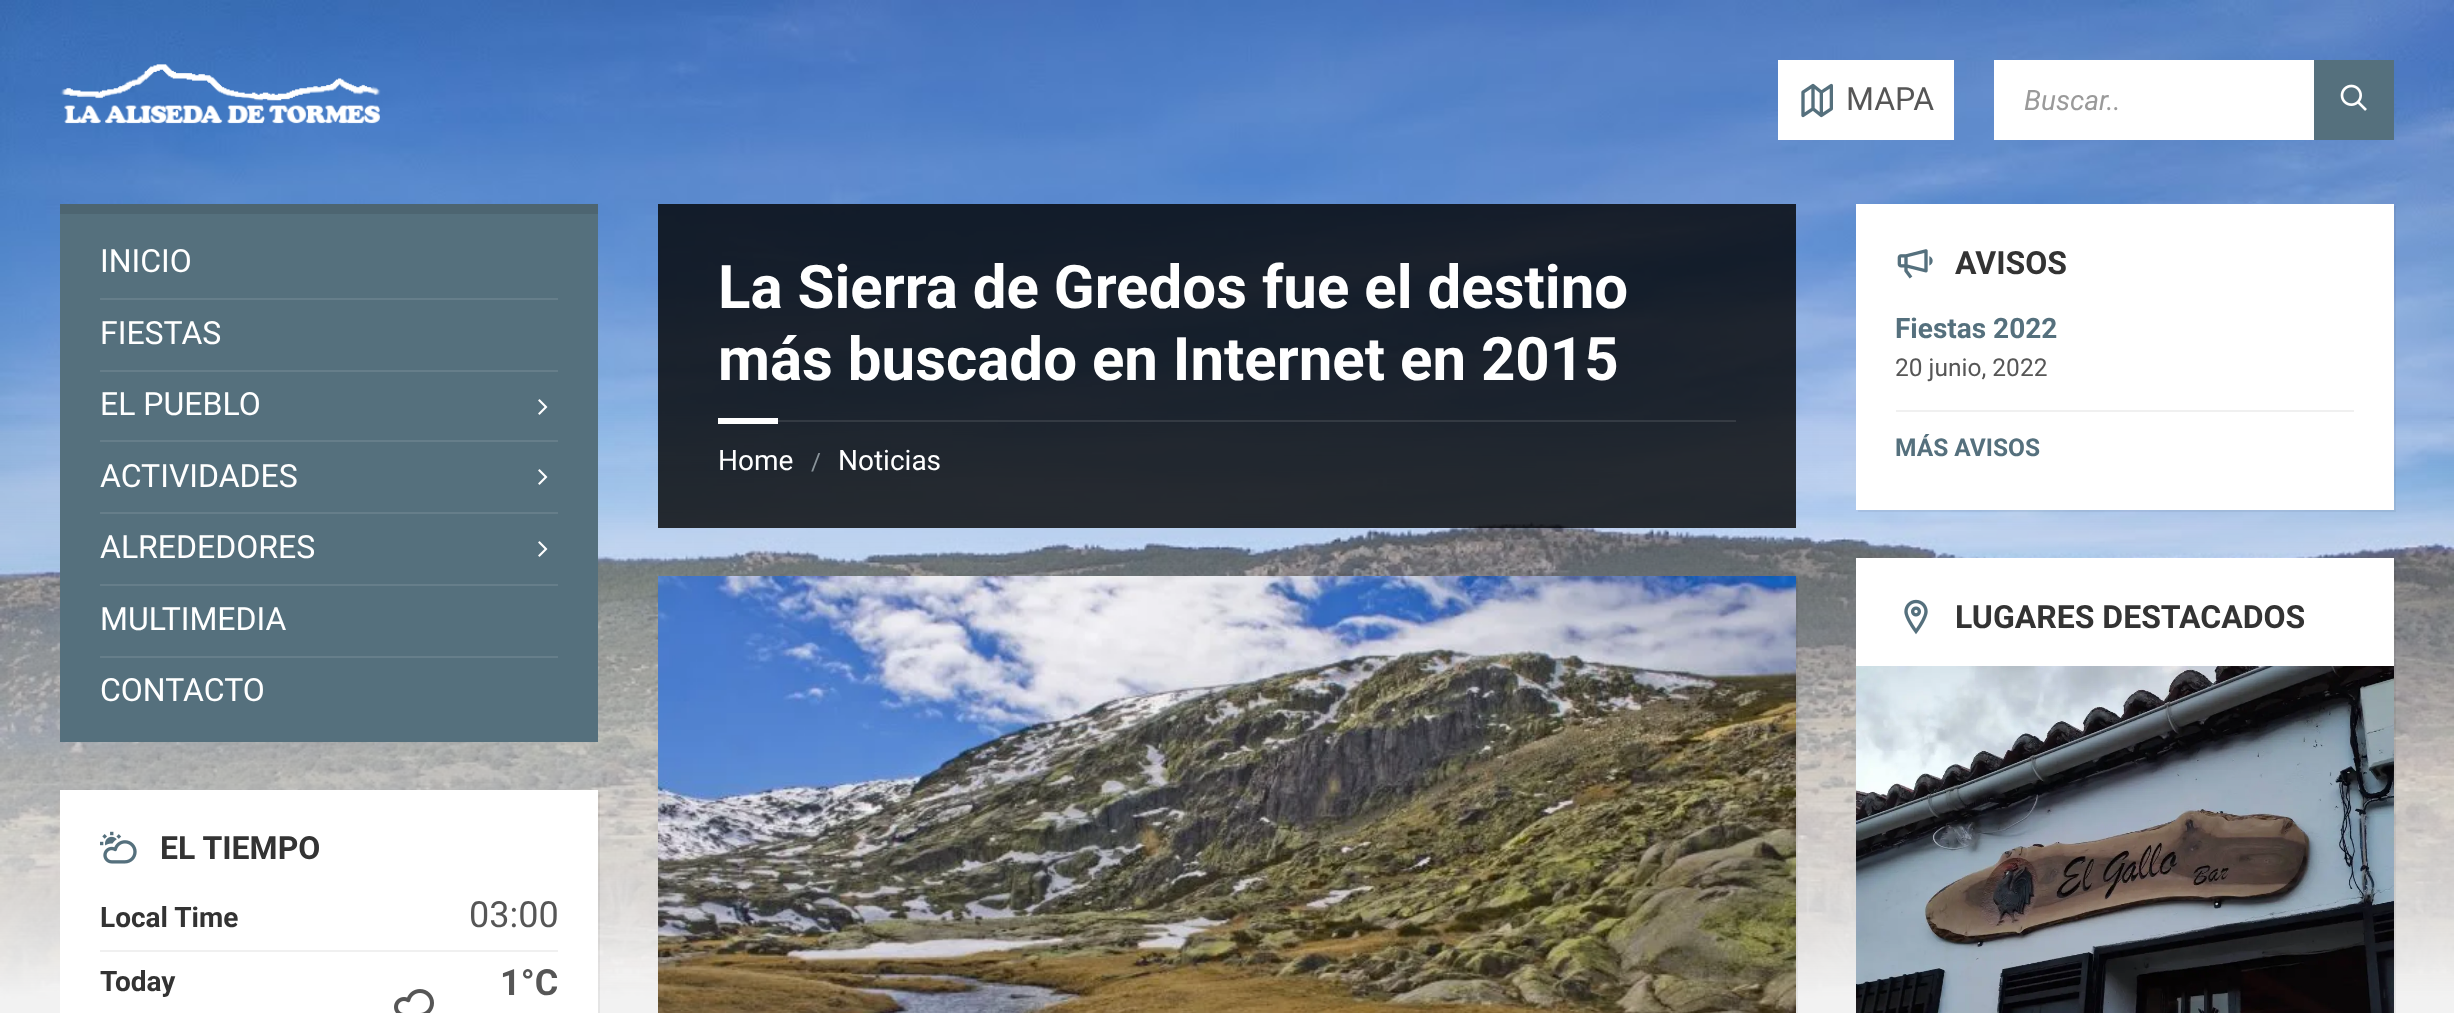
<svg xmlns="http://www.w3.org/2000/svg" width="2454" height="1013">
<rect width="100%" height="100%" fill="#f2f2f2"/>
<image x="0" y="0" width="2454" height="1000" href="media/1.png"/>
<image x="60" y="64" width="321" height="60" href="media/2.png"/>
<rect x="1778" y="60" width="176" height="80" fill="#fff"/>
<image x="1801" y="83" width="32" height="35" href="media/3.png"/>
<text x="1846" y="110" style="font-family:Roboto;font-size:32px;fill:#565656">MAPA</text>
<rect x="1994" y="60" width="320" height="80" fill="#fff"/>
<text x="2024" y="110" style="font-family:Roboto;font-size:28px;font-style:italic;fill:#9a9a9a">Buscar..</text>
<rect x="2314" y="60" width="80" height="80" fill="#55707d"/>
<image x="2340" y="84" width="27" height="27" href="media/4.png"/>
<rect x="60" y="214" width="538" height="528" fill="#55707d"/>
<rect x="60" y="204" width="538" height="10" fill="#4d6571"/>
<text x="100" y="272" style="font-family:Roboto;font-size:32px;fill:#fff">INICIO</text>
<rect x="100" y="298" width="458" height="2" fill="#667e8a"/>
<text x="100" y="344" style="font-family:Roboto;font-size:32px;fill:#fff">FIESTAS</text>
<rect x="100" y="370" width="458" height="2" fill="#667e8a"/>
<text x="100" y="415" style="font-family:Roboto;font-size:32px;fill:#fff">EL PUEBLO</text>
<image x="538" y="399" width="10" height="16" href="media/5.png"/>
<rect x="100" y="440" width="458" height="2" fill="#667e8a"/>
<text x="100" y="487" style="font-family:Roboto;font-size:32px;fill:#fff">ACTIVIDADES</text>
<image x="538" y="469" width="10" height="16" href="media/5.png"/>
<rect x="100" y="512" width="458" height="2" fill="#667e8a"/>
<text x="100" y="558" style="font-family:Roboto;font-size:32px;fill:#fff">ALREDEDORES</text>
<image x="538" y="541" width="10" height="16" href="media/5.png"/>
<rect x="100" y="584" width="458" height="2" fill="#667e8a"/>
<text x="100" y="630" style="font-family:Roboto;font-size:32px;fill:#fff">MULTIMEDIA</text>
<rect x="100" y="656" width="458" height="2" fill="#667e8a"/>
<text x="100" y="701" style="font-family:Roboto;font-size:32px;fill:#fff">CONTACTO</text>
<path d="M62 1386v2h538v-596h-2v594z" fill="#0000000d"/>
<rect x="60" y="790" width="538" height="223" fill="#fff"/>
<image x="100" y="831" width="37" height="33" href="media/6.png"/>
<text x="160" y="859" style="font-family:Roboto;font-size:32px;font-weight:bold;fill:#333">EL TIEMPO</text>
<text x="100" y="927" style="font-family:Roboto;font-size:28px;font-weight:bold;fill:#333">Local Time</text>
<text x="469" y="927" style="font-family:Roboto;font-size:36px;fill:#565656">03:00</text>
<rect x="100" y="950" width="458" height="2" fill="#f0f0f0"/>
<text x="100" y="991" style="font-family:Roboto;font-size:28px;font-weight:bold;fill:#333">Today</text>
<text x="500" y="995" style="font-family:Roboto;font-size:36px;font-weight:bold;fill:#565656">1°C</text>
<image x="394" y="989" width="40" height="24" href="media/7.png"/>
<rect x="658" y="204" width="1138" height="324" fill="#000000cc"/>
<text x="718" y="308" style="font-family:Roboto;font-size:60px;font-weight:bold;fill:#fff">La Sierra de Gredos fue el destino</text>
<text x="718" y="380" style="font-family:Roboto;font-size:60px;font-weight:bold;fill:#fff">más buscado en Internet en 2015</text>
<rect x="778" y="420" width="958" height="2" fill="#ffffff1a"/>
<rect x="718" y="418" width="60" height="6" fill="#fff"/>
<text x="718" y="470" style="font-family:Roboto;font-size:28px;fill:#fff">Home</text>
<text x="811" y="470" style="font-family:Roboto;font-size:24px;fill:#8a949b">/</text>
<text x="838" y="470" style="font-family:Roboto;font-size:28px;fill:#fff">Noticias</text>
<path d="M660 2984v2h1138v-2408h-2v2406z" fill="#0000000d"/>
<image x="658" y="576" width="1138" height="437" href="media/8.png"/>
<path d="M1858 510v2h538v-306h-2v304z" fill="#0000000d"/>
<rect x="1856" y="204" width="538" height="306" fill="#fff"/>
<image x="1897" y="249" width="36" height="30" href="media/9.png"/>
<text x="1955" y="274" style="font-family:Roboto;font-size:32px;font-weight:bold;fill:#333">AVISOS</text>
<text x="1895" y="338" style="font-family:Roboto;font-size:28px;font-weight:bold;fill:#55707d">Fiestas 2022</text>
<text x="1895" y="376" style="font-family:Roboto;font-size:24.5px;fill:#565656">20 junio, 2022</text>
<rect x="1896" y="410" width="458" height="2" fill="#f0f0f0"/>
<text x="1895" y="456" style="font-family:Roboto;font-size:24.5px;font-weight:bold;fill:#55707d">MÁS AVISOS</text>
<path d="M1858 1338v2h538v-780h-2v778z" fill="#0000000d"/>
<rect x="1856" y="558" width="538" height="108" fill="#fff"/>
<image x="1904" y="599" width="24" height="36" href="media/10.png"/>
<text x="1955" y="628" style="font-family:Roboto;font-size:32px;font-weight:bold;fill:#333">LUGARES DESTACADOS</text>
<image x="1856" y="666" width="538" height="347" href="media/11.png"/>
</svg>
